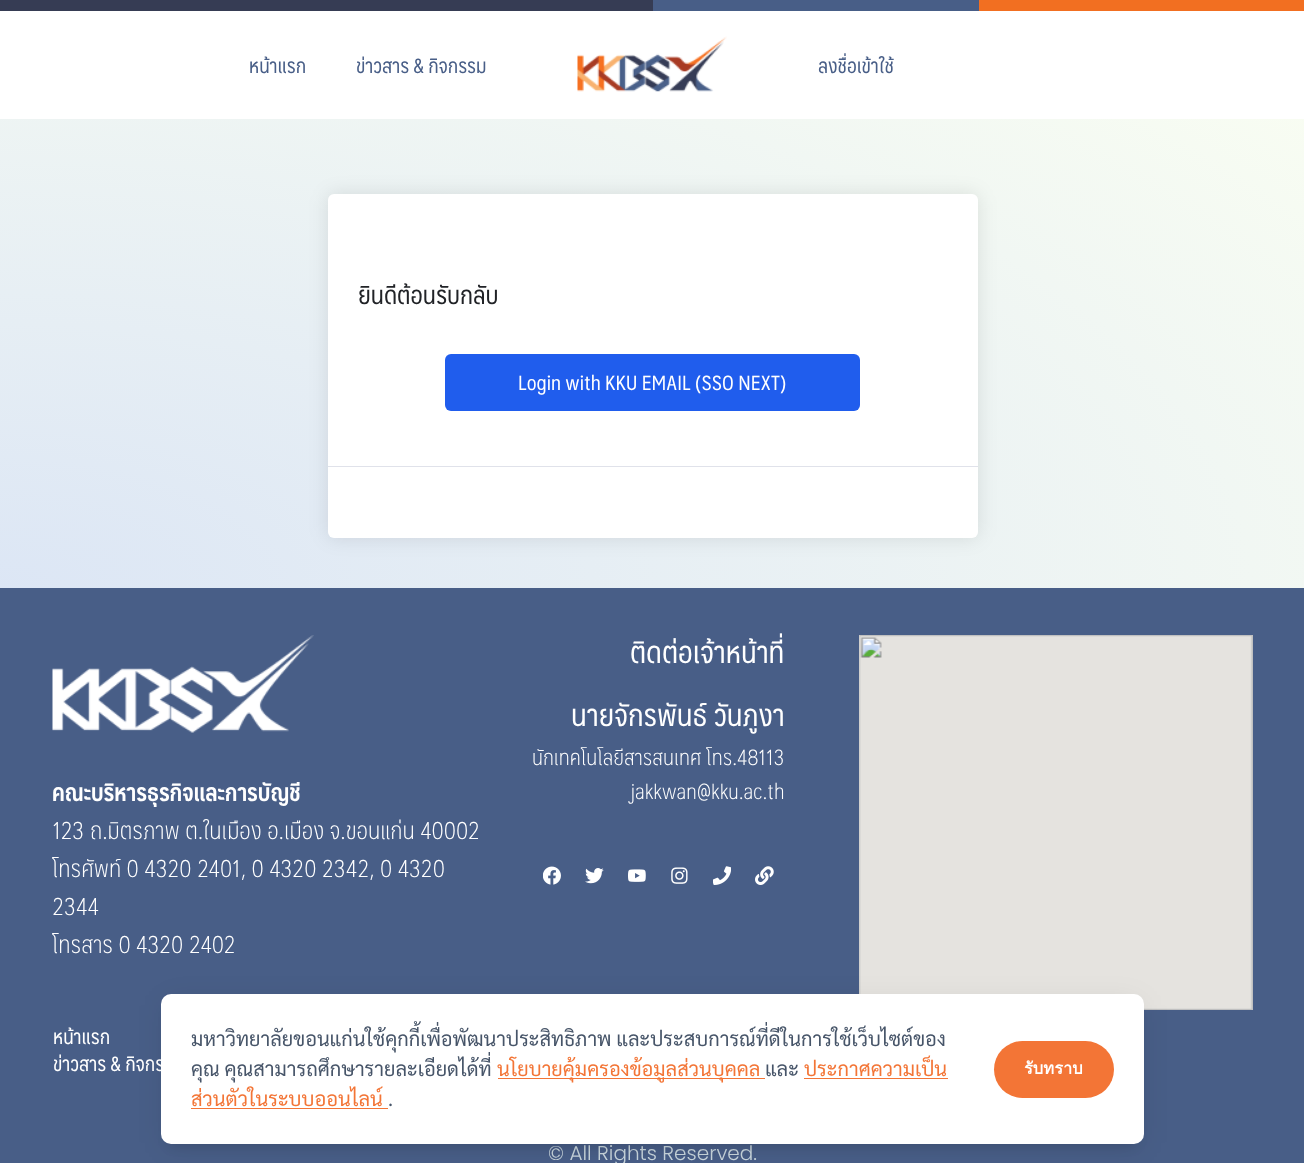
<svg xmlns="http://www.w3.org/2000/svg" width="1304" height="1163">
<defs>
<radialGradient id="g1" gradientUnits="userSpaceOnUse" cx="0" cy="0" r="1" gradientTransform="matrix(1846 0 0 835 0 591)"><stop offset="0" stop-color="#dce6f5"/><stop offset="1" stop-color="#fbfff2"/></radialGradient>
</defs>
<rect width="100%" height="100%" fill="#fff"/>
<rect y="119" width="1304" height="469" fill="url(#g1)"/>
<rect width="653" height="11" fill="#363c54"/>
<rect x="653" width="326" height="11" fill="#485e87"/>
<rect x="979" width="325" height="11" fill="#f26f21"/>
<text x="249" y="73" style="font-family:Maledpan;font-size:20px;fill:#485e87">หน้าแรก</text>
<text x="356" y="73" style="font-family:Maledpan;font-size:20px;fill:#485e87">ข่าวสาร &amp; กิจกรรม</text>
<image x="577" y="36" width="150" height="56" href="media/1.png"/>
<text x="818" y="73" style="font-family:Maledpan;font-size:20px;fill:#485e87">ลงชื่อเข้าใช้</text>
<rect x="328" y="194" width="650" height="344" rx="6" fill="#0000001a" filter="blur(9.5px)"/>
<rect x="328" y="194" width="650" height="344" rx="6" fill="#fff"/>
<text x="358" y="304" style="font-family:Maledpan;font-size:25px;fill:#212327">ยินดีต้อนรับกลับ</text>
<rect x="445" y="354" width="415" height="57" rx="6" fill="#205ded"/>
<text x="518" y="390" style="font-family:Maledpan;font-size:20px;fill:#fff">Login with KKU EMAIL (SSO NEXT)</text>
<rect x="328" y="466" width="650" height="1" fill="#e0e2ea"/>
<rect y="588" width="1304" height="575" fill="#485e87"/>
<image x="52" y="635" width="262" height="98" href="media/2.png"/>
<text x="52" y="801" style="font-family:Maledpan;font-size:23.75px;font-weight:bold;fill:#fff">คณะบริหารธุรกิจและการบัญชี</text>
<text x="52" y="839" style="font-family:Maledpan;font-size:23.75px;font-weight:300;fill:#fff">123 ถ.มิตรภาพ ต.ในเมือง อ.เมือง จ.ขอนแก่น 40002</text>
<text x="52" y="877" style="font-family:Maledpan;font-size:23.75px;font-weight:300;fill:#fff">โทรศัพท์ 0 4320 2401, 0 4320 2342, 0 4320</text>
<text x="52" y="915" style="font-family:Maledpan;font-size:23.75px;font-weight:300;fill:#fff">2344</text>
<text x="52" y="953" style="font-family:Maledpan;font-size:23.75px;font-weight:300;fill:#fff">โทรสาร 0 4320 2402</text>
<text x="53" y="1044" style="font-family:Maledpan;font-size:20px;fill:#fff">หน้าแรก</text>
<text x="53" y="1071" style="font-family:Maledpan;font-size:20px;fill:#fff">ข่าวสาร &amp; กิจกร</text>
<text x="630" y="663" style="font-family:Maledpan;font-size:30px;fill:#fff">ติดต่อเจ้าหน้าที่</text>
<text x="571" y="726" style="font-family:Maledpan;font-size:30px;fill:#fff">นายจักรพันธ์ วันภูงา</text>
<text x="532" y="765" style="font-family:Maledpan;font-size:21.25px;font-weight:300;fill:#fff">นักเทคโนโลยีสารสนเทศ โทร.48113</text>
<text x="630" y="799" style="font-family:Maledpan;font-size:21.25px;font-weight:300;fill:#fff">jakkwan@kku.ac.th</text>
<image x="543" y="866" width="18" height="19" href="media/3.png"/>
<image x="585" y="868" width="19" height="16" href="media/4.png"/>
<image x="628" y="869" width="18" height="13" href="media/5.png"/>
<image x="671" y="867" width="17" height="17" href="media/6.png"/>
<image x="713" y="866" width="18" height="19" href="media/7.png"/>
<image x="755" y="866" width="19" height="19" href="media/8.png"/>
<image x="859" y="635" width="394" height="375" href="media/9.png"/>
<text x="548" y="1160" style="font-family:Poppins;font-size:20px;font-weight:300;fill:#c8d5dc">© All Rights Reserved.</text>
<rect x="169" y="1011" width="967" height="135" rx="2.5" fill="#0000001a" filter="blur(6px)"/>
<rect x="168" y="1005" width="970" height="138" rx="4" fill="#0000001a" filter="blur(15.5px)"/>
<rect x="161" y="994" width="983" height="150" rx="10" fill="#fff"/>
<text x="191" y="1046" style="font-family:Sarabun;font-size:20px;fill:#475569">มหาวิทยาลัยขอนแก่นใช้คุกกี้เพื่อพัฒนาประสิทธิภาพ และประสบการณ์ที่ดีในการใช้เว็บไซต์ของ</text>
<text x="191" y="1076" style="font-family:Sarabun;font-size:20px;fill:#475569">คุณ คุณสามารถศึกษารายละเอียดได้ที่</text>
<rect x="498" y="1078" width="267" height="1" fill="#f37536"/>
<text x="497" y="1076" style="font-family:Sarabun;font-size:20px;fill:#f37536">นโยบายคุ้มครองข้อมูลส่วนบุคคล</text>
<text x="765" y="1076" style="font-family:Sarabun;font-size:20px;fill:#475569">และ</text>
<text x="804" y="1076" style="font-family:Sarabun;font-size:20px;fill:#f37536">ประกาศความเป็น</text>
<rect x="804" y="1078" width="144" height="1" fill="#f37536"/>
<text x="191" y="1106" style="font-family:Sarabun;font-size:20px;fill:#f37536">ส่วนตัวในระบบออนไลน์</text>
<rect x="191" y="1108" width="197" height="1" fill="#f37536"/>
<text x="388" y="1106" style="font-family:Sarabun;font-size:20px;fill:#475569">.</text>
<rect x="994" y="1041" width="120" height="57" rx="28.5" fill="#f37536"/>
<text x="1024" y="1074" style="font-family:Loma;font-size:16.5px;font-weight:bold;fill:#fff">รับทราบ</text>
</svg>
